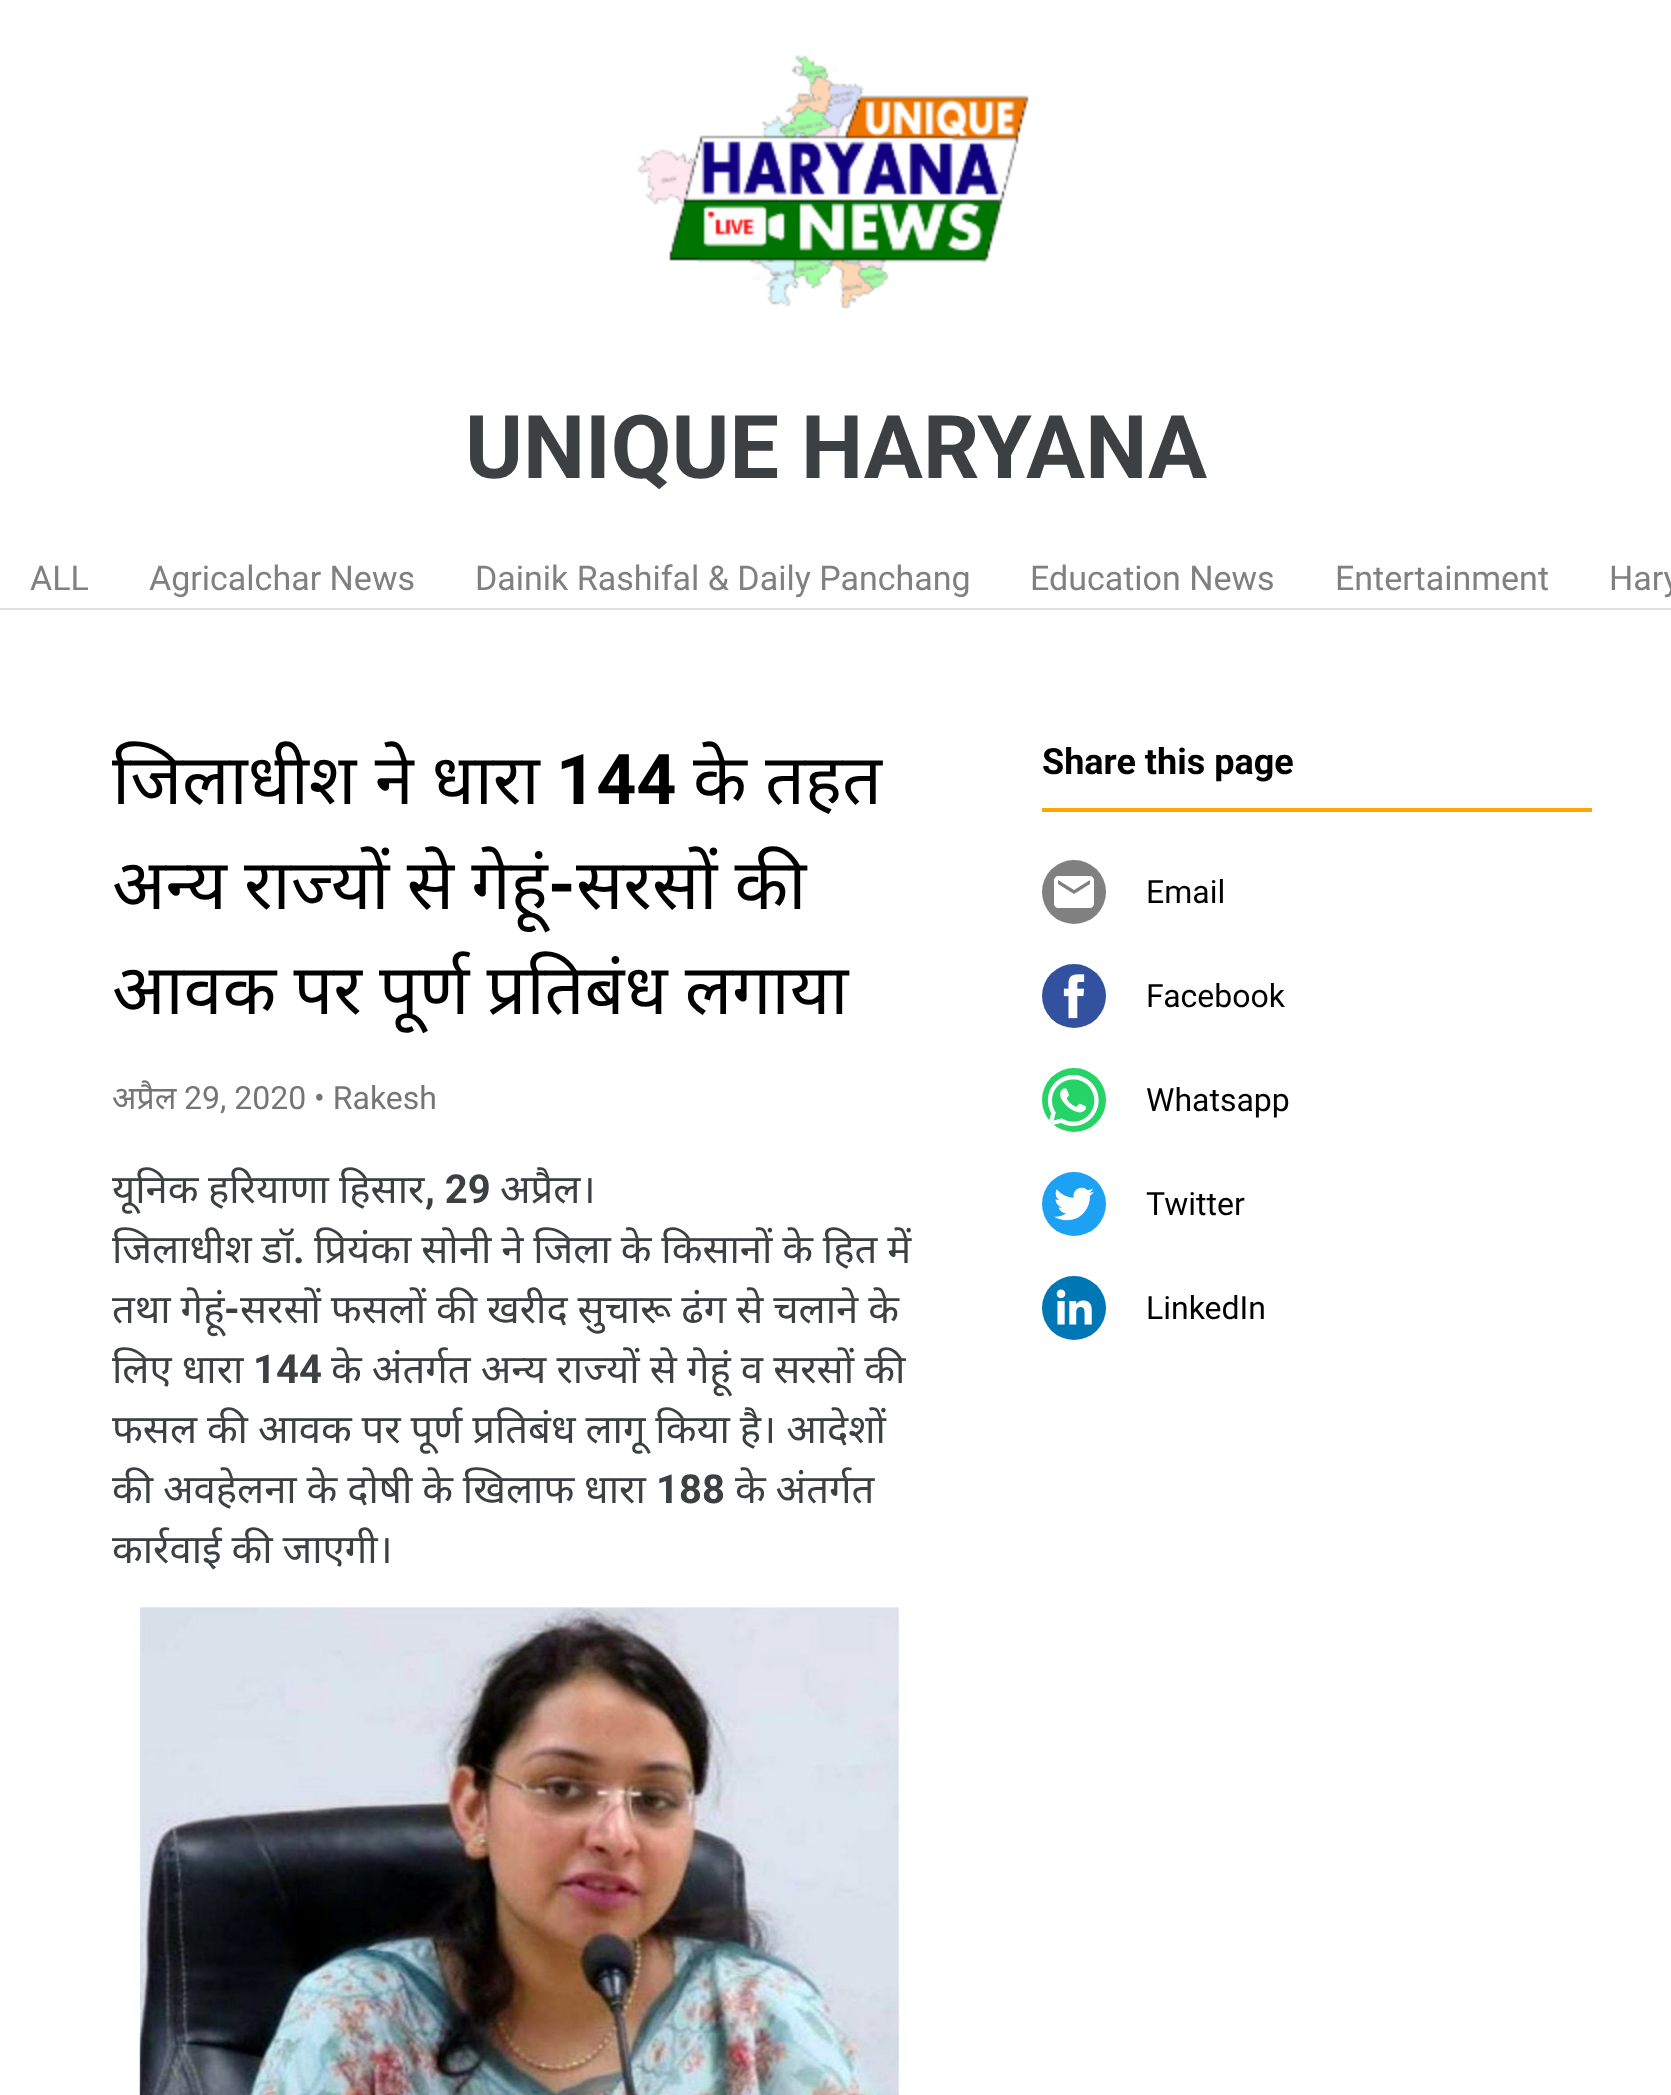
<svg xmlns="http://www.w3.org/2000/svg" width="1671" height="2095">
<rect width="100%" height="100%" fill="#fff"/>
<rect y="608" width="1671" height="2" fill="#e0e0e0"/>
<image x="637" y="55" width="392" height="254" href="media/1.png"/>
<text x="465" y="478" style="font-family:Roboto;font-size:88px;font-weight:bold;fill:#3c4043">UNIQUE HARYANA</text>
<text x="30" y="590" style="font-family:Roboto;font-size:34px;fill:#808080">ALL</text>
<text x="149" y="590" style="font-family:Roboto;font-size:34px;fill:#808080">Agricalchar News</text>
<text x="475" y="590" style="font-family:Roboto;font-size:34px;fill:#808080">Dainik Rashifal &amp; Daily Panchang</text>
<text x="1030" y="590" style="font-family:Roboto;font-size:34px;fill:#808080">Education News</text>
<text x="1335" y="590" style="font-family:Roboto;font-size:34px;fill:#808080">Entertainment</text>
<text x="1609" y="590" style="font-family:Roboto;font-size:34px;fill:#808080">Hary</text>
<text x="112" y="804" style="font-family:Noto Sans;font-size:70px;fill:#000">जिलाधीश ने धारा</text>
<text x="556" y="804" style="font-family:Roboto;font-size:70px;font-weight:bold;fill:#000">144</text>
<text x="693" y="804" style="font-family:Noto Sans;font-size:70px;fill:#000">के तहत</text>
<text x="112" y="909" word-spacing="-1" style="font-family:Noto Sans;font-size:70px;fill:#000">अन्य राज्यों से गेहूं</text>
<text x="548" y="909" style="font-family:Roboto;font-size:70px;font-weight:bold;fill:#000">-</text>
<text x="576" y="909" word-spacing="-1" style="font-family:Noto Sans;font-size:70px;fill:#000">सरसों की</text>
<text x="112" y="1014" word-spacing="-1" style="font-family:Noto Sans;font-size:70px;fill:#000">आवक पर पूर्ण प्रतिबंध लगाया</text>
<text x="112" y="1109" style="font-family:Noto Sans;font-size:32px;fill:#757575">अप्रैल</text>
<text x="184" y="1109" style="font-family:Roboto;font-size:32px;fill:#757575">29, 2020 • Rakesh</text>
<text x="112" y="1203" style="font-family:Noto Sans;font-size:40px;fill:#3c4043">यूनिक</text>
<text x="208" y="1203" style="font-family:Noto Sans;font-size:40px;fill:#3c4043">हरियाणा</text>
<text x="339" y="1203" style="font-family:Noto Sans;font-size:40px;fill:#3c4043">हिसार</text>
<text x="425" y="1203" style="font-family:Roboto;font-size:40px;font-weight:bold;fill:#3c4043">, 29</text>
<text x="500" y="1203" style="font-family:Noto Sans;font-size:40px;fill:#3c4043">अप्रैल।</text>
<text x="112" y="1263" word-spacing="-0.5" style="font-family:Noto Sans;font-size:40px;fill:#3c4043">जिलाधीश डॉ</text>
<text x="293" y="1263" style="font-family:Roboto;font-size:40px;font-weight:bold;fill:#3c4043">.</text>
<text x="314" y="1263" word-spacing="-0.5" style="font-family:Noto Sans;font-size:40px;fill:#3c4043">प्रियंका सोनी ने जिला के किसानों के हित में</text>
<text x="112" y="1323" word-spacing="-0.5" style="font-family:Noto Sans;font-size:40px;fill:#3c4043">तथा गेहूं</text>
<text x="224" y="1323" style="font-family:Roboto;font-size:40px;font-weight:bold;fill:#3c4043">-</text>
<text x="240" y="1323" word-spacing="-0.5" style="font-family:Noto Sans;font-size:40px;fill:#3c4043">सरसों फसलों की खरीद सुचारू ढंग से चलाने के</text>
<text x="112" y="1383" word-spacing="-0.25" style="font-family:Noto Sans;font-size:40px;fill:#3c4043">लिए धारा</text>
<text x="253" y="1383" style="font-family:Roboto;font-size:40px;font-weight:bold;fill:#3c4043">144</text>
<text x="331" y="1383" word-spacing="-0.25" style="font-family:Noto Sans;font-size:40px;fill:#3c4043">के अंतर्गत अन्य राज्यों से गेहूं व सरसों की</text>
<text x="112" y="1443" word-spacing="-0.5" style="font-family:Noto Sans;font-size:40px;fill:#3c4043">फसल की आवक पर पूर्ण प्रतिबंध लागू किया है। आदेशों</text>
<text x="112" y="1503" word-spacing="-0.5" style="font-family:Noto Sans;font-size:40px;fill:#3c4043">की अवहेलना के दोषी के खिलाफ धारा</text>
<text x="656" y="1503" style="font-family:Roboto;font-size:40px;font-weight:bold;fill:#3c4043">188</text>
<text x="735" y="1503" word-spacing="-0.5" style="font-family:Noto Sans;font-size:40px;fill:#3c4043">के अंतर्गत</text>
<text x="112" y="1563" word-spacing="-0.5" style="font-family:Noto Sans;font-size:40px;fill:#3c4043">कार्रवाई की जाएगी।</text>
<image x="139" y="1607" width="761" height="488" href="media/2.png"/>
<rect x="1042" y="808" width="550" height="4" fill="#ffa500"/>
<text x="1042" y="774" style="font-family:Roboto;font-size:36px;font-weight:bold;fill:#000">Share this page</text>
<circle cx="1074" cy="892" r="32" fill="#808080"/>
<image x="1054" y="876" width="40" height="32" href="media/3.png"/>
<text x="1146" y="903" style="font-family:Roboto;font-size:32px;fill:#000">Email</text>
<circle cx="1074" cy="996" r="32" fill="#32529f"/>
<image x="1063" y="974" width="22" height="45" href="media/4.png"/>
<text x="1146" y="1007" style="font-family:Roboto;font-size:32px;fill:#000">Facebook</text>
<circle cx="1074" cy="1100" r="32" fill="#25d366"/>
<image x="1047" y="1074" width="52" height="52" href="media/5.png"/>
<text x="1146" y="1111" style="font-family:Roboto;font-size:32px;fill:#000">Whatsapp</text>
<circle cx="1074" cy="1204" r="32" fill="#1da1f2"/>
<image x="1054" y="1187" width="40" height="34" href="media/6.png"/>
<text x="1146" y="1215" style="font-family:Roboto;font-size:32px;fill:#000">Twitter</text>
<circle cx="1074" cy="1308" r="32" fill="#0077b5"/>
<image x="1056" y="1289" width="36" height="36" href="media/7.png"/>
<text x="1146" y="1319" style="font-family:Roboto;font-size:32px;fill:#000">LinkedIn</text>
</svg>
